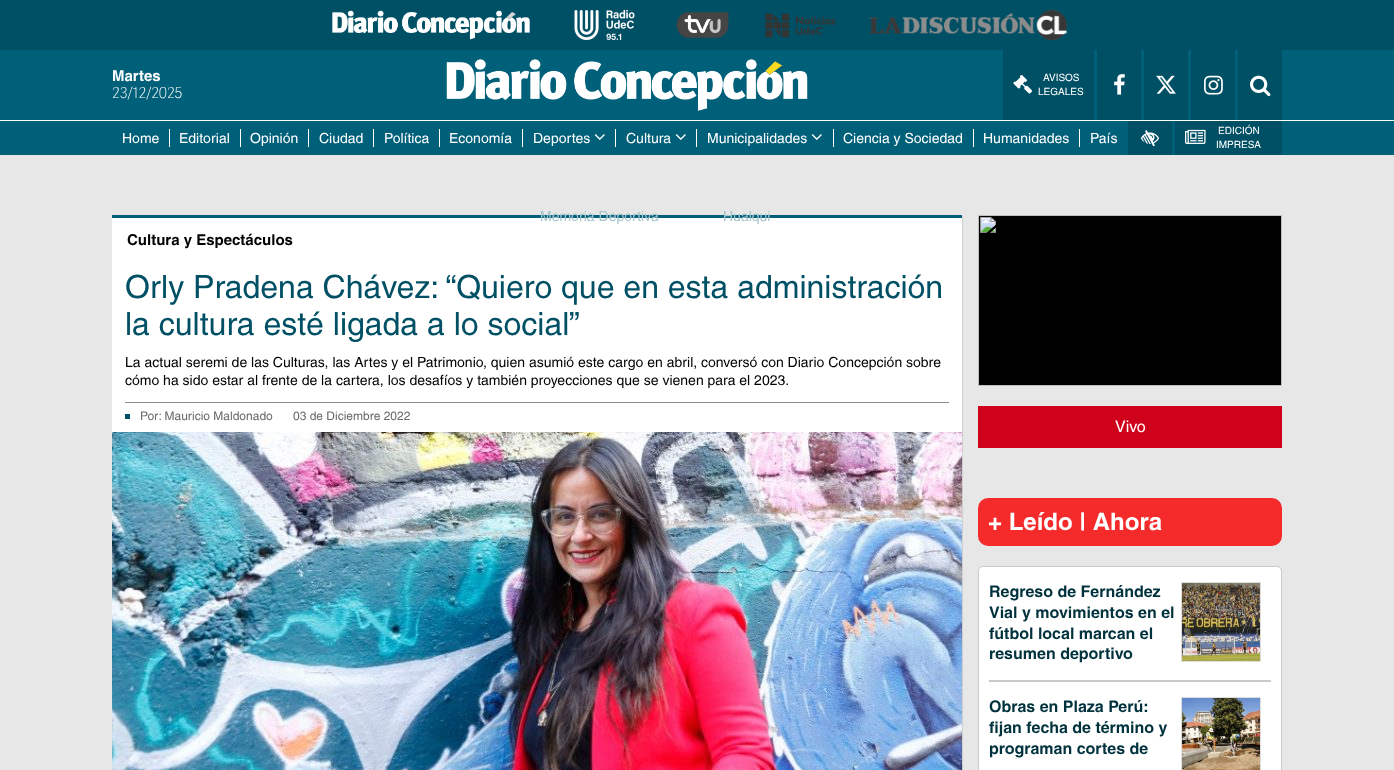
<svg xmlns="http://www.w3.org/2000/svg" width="1394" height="770">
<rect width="100%" height="100%" fill="#e7e7e7"/>
<rect width="1394" height="50" fill="#005065"/>
<image x="332" y="10" width="198" height="30" href="media/1.png"/>
<image x="574" y="10" width="61" height="30" href="media/2.png"/>
<image x="676" y="12" width="53" height="26" href="media/3.png"/>
<image x="765" y="13" width="71" height="25" href="media/4.png"/>
<image x="869" y="10" width="198" height="30" href="media/5.png"/>
<rect y="50" width="1394" height="70" fill="#00607a"/>
<rect y="120" width="1394" height="1" fill="#fff"/>
<text x="112" y="81" style="font-family:Helvetica;font-size:15px;font-weight:bold;fill:#fff">Martes</text>
<text x="112" y="98" style="font-family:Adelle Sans;font-size:15px;font-weight:100;fill:#fff">23/12/2025</text>
<image x="446" y="59" width="362" height="52" href="media/6.png"/>
<rect x="1003" y="50" width="91" height="70" fill="#005065"/>
<image x="1013" y="75" width="19" height="19" href="media/7.png"/>
<text x="1043" y="81" style="font-family:Helvetica;font-size:10px;font-weight:500;fill:#fff">AVISOS</text>
<text x="1038" y="95" style="font-family:Helvetica;font-size:10px;font-weight:500;fill:#fff">LEGALES</text>
<rect x="1097" y="50" width="44" height="70" fill="#005065"/>
<image x="1114" y="74" width="11" height="21" href="media/8.png"/>
<rect x="1144" y="50" width="44" height="70" fill="#005065"/>
<image x="1156" y="75" width="20" height="19" href="media/9.png"/>
<rect x="1191" y="50" width="44" height="70" fill="#005065"/>
<image x="1204" y="75" width="19" height="20" href="media/10.png"/>
<rect x="1238" y="50" width="44" height="70" fill="#005065"/>
<image x="1250" y="75" width="21" height="22" href="media/11.png"/>
<rect y="121" width="1394" height="34" fill="#00607a"/>
<text x="122" y="143" style="font-family:Helvetica;font-size:14px;font-weight:500;fill:#fff">Home</text>
<rect x="169" y="129" width="1" height="18" fill="#fff"/>
<text x="179" y="143" style="font-family:Helvetica;font-size:14px;font-weight:500;fill:#fff">Editorial</text>
<rect x="240" y="129" width="1" height="18" fill="#fff"/>
<text x="250" y="143" style="font-family:Helvetica;font-size:14px;font-weight:500;fill:#fff">Opinión</text>
<rect x="308" y="129" width="1" height="18" fill="#fff"/>
<text x="319" y="143" style="font-family:Helvetica;font-size:14px;font-weight:500;fill:#fff">Ciudad</text>
<rect x="373" y="129" width="1" height="18" fill="#fff"/>
<text x="384" y="143" style="font-family:Helvetica;font-size:14px;font-weight:500;fill:#fff">Política</text>
<rect x="439" y="129" width="1" height="18" fill="#fff"/>
<text x="449" y="143" style="font-family:Helvetica;font-size:14px;font-weight:500;fill:#fff">Economía</text>
<rect x="522" y="129" width="1" height="18" fill="#fff"/>
<text x="533" y="143" style="font-family:Helvetica;font-size:14px;font-weight:500;fill:#fff">Deportes</text>
<image x="594" y="134" width="11" height="6" href="media/12.png"/>
<rect x="615" y="129" width="1" height="18" fill="#fff"/>
<rect x="113" y="216" width="850" height="41" fill="#0000001a" filter="blur(0.5px)"/>
<rect x="112" y="218" width="850" height="38" fill="#fff"/>
<rect x="112" y="215" width="850" height="3" fill="#00607a"/>
<text x="540" y="221" style="font-family:Helvetica;font-size:14px;font-weight:500;fill:#a5c4cc">Memoria Deportiva</text>
<text x="626" y="143" style="font-family:Helvetica;font-size:14px;font-weight:500;fill:#fff">Cultura</text>
<image x="675" y="134" width="11" height="6" href="media/12.png"/>
<rect x="696" y="129" width="1" height="18" fill="#fff"/>
<text x="707" y="143" style="font-family:Helvetica;font-size:14px;font-weight:500;fill:#fff">Municipalidades</text>
<image x="811" y="134" width="11" height="6" href="media/12.png"/>
<rect x="833" y="129" width="1" height="18" fill="#fff"/>
<text x="723" y="221" style="font-family:Helvetica;font-size:14px;font-weight:500;fill:#a5c4cc">Hualqui</text>
<text x="843" y="143" style="font-family:Helvetica;font-size:14px;font-weight:500;fill:#fff">Ciencia y Sociedad</text>
<rect x="973" y="129" width="1" height="18" fill="#fff"/>
<text x="983" y="143" style="font-family:Helvetica;font-size:14px;font-weight:500;fill:#fff">Humanidades</text>
<rect x="1079" y="129" width="1" height="18" fill="#fff"/>
<text x="1090" y="143" style="font-family:Helvetica;font-size:14px;font-weight:500;fill:#fff">País</text>
<rect x="1128" y="121" width="44" height="34" fill="#005065"/>
<image x="1141" y="130" width="18" height="17" href="media/13.png"/>
<rect x="1175" y="121" width="107" height="34" fill="#005065"/>
<image x="1185" y="129" width="21" height="15" href="media/14.png"/>
<text x="1218" y="134" style="font-family:Helvetica;font-size:10px;font-weight:500;fill:#fff">EDICIÓN</text>
<text x="1216" y="148" style="font-family:Helvetica;font-size:10px;font-weight:500;fill:#fff">IMPRESA</text>
<text x="127" y="245" style="font-family:Helvetica;font-size:15px;font-weight:bold;fill:#000">Cultura y Espectáculos</text>
<rect x="113" y="257" width="850" height="176" fill="#0000001a" filter="blur(0.5px)"/>
<rect x="112" y="256" width="850" height="176" fill="#fff"/>
<text x="125" y="298" style="font-family:Helvetica;font-size:32px;font-weight:500;fill:#005065">Orly Pradena Chávez: “Quiero que en esta administración</text>
<text x="125" y="335" style="font-family:Helvetica;font-size:32px;font-weight:500;fill:#005065">la cultura esté ligada a lo social”</text>
<text x="125" y="367" style="font-family:Helvetica;font-size:14px;font-weight:500;fill:#000">La actual seremi de las Culturas, las Artes y el Patrimonio, quien asumió este cargo en abril, conversó con Diario Concepción sobre</text>
<text x="125" y="385" style="font-family:Helvetica;font-size:14px;font-weight:500;fill:#000">cómo ha sido estar al frente de la cartera, los desafíos y también proyecciones que se vienen para el 2023.</text>
<rect x="125" y="402" width="824" height="1" fill="#8f8f8f"/>
<rect x="125" y="414" width="5" height="5" fill="#005065"/>
<text x="140" y="420" style="font-family:Helvetica;font-size:12px;font-weight:500;fill:#6b6b6b">Por: Mauricio Maldonado</text>
<text x="293" y="420" style="font-family:Helvetica;font-size:12px;font-weight:500;fill:#6b6b6b">03 de Diciembre 2022</text>
<rect x="113" y="433" width="850" height="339" fill="#0000001a" filter="blur(0.5px)"/>
<image x="112" y="432" width="850" height="338" href="media/15.png"/>
<image x="978" y="215" width="304" height="171" href="media/16.png"/>
<rect x="978" y="406" width="304" height="42" fill="#d0021b"/>
<text x="1115" y="432" style="font-family:Helvetica;font-size:16px;font-weight:500;fill:#fff">Vivo</text>
<rect x="978" y="498" width="304" height="48" rx="10" fill="#f52a2a"/>
<text x="988" y="530" style="font-family:Helvetica;font-size:24px;font-weight:bold;fill:#fff">+ Leído | Ahora</text>
<rect x="978.5" y="566.5" width="303" height="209" rx="4.5" fill="#fff" stroke="#c9c9c9"/>
<rect x="989" y="680" width="282" height="2" fill="#c9c9c9"/>
<text x="989" y="597" style="font-family:Helvetica;font-size:16px;font-weight:bold;fill:#00323d">Regreso de Fernández</text>
<text x="989" y="618" style="font-family:Helvetica;font-size:16px;font-weight:bold;fill:#00323d">Vial y movimientos en el</text>
<text x="989" y="639" style="font-family:Helvetica;font-size:16px;font-weight:bold;fill:#00323d">fútbol local marcan el</text>
<text x="989" y="659" style="font-family:Helvetica;font-size:16px;font-weight:bold;fill:#00323d">resumen deportivo</text>
<rect x="1181.5" y="582.5" width="79" height="79" fill="none" stroke="#dedede"/>
<image x="1182" y="583" width="78" height="78" href="media/17.png"/>
<text x="989" y="712" style="font-family:Helvetica;font-size:16px;font-weight:bold;fill:#00323d">Obras en Plaza Perú:</text>
<text x="989" y="733" style="font-family:Helvetica;font-size:16px;font-weight:bold;fill:#00323d">fijan fecha de término y</text>
<text x="989" y="754" style="font-family:Helvetica;font-size:16px;font-weight:bold;fill:#00323d">programan cortes de</text>
<rect x="1181.5" y="697.5" width="79" height="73" fill="none" stroke="#dedede"/>
<image x="1182" y="698" width="78" height="72" href="media/18.png"/>
</svg>
